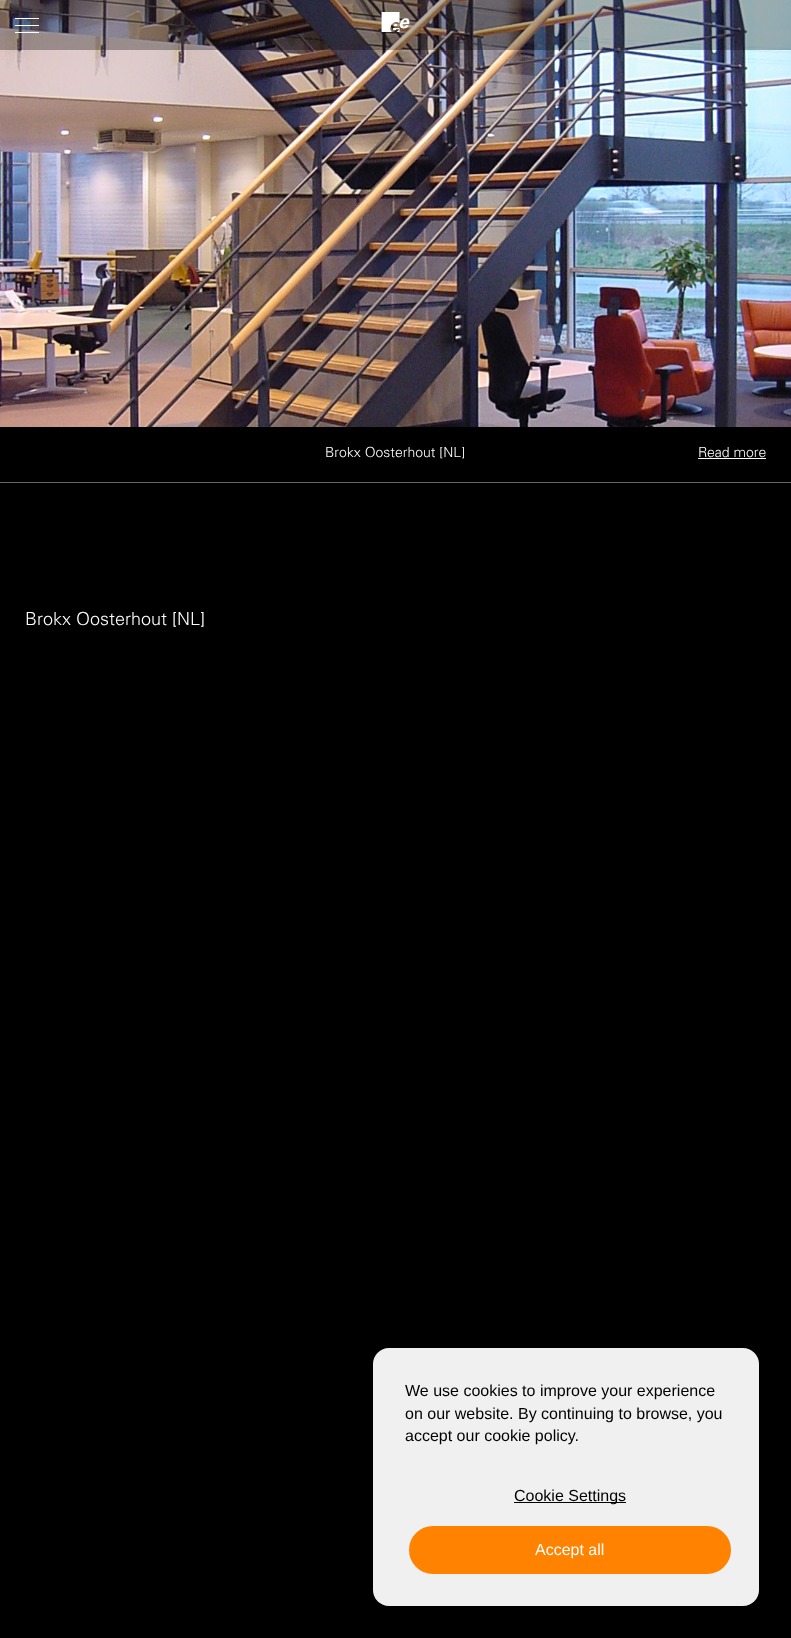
<svg xmlns="http://www.w3.org/2000/svg" width="791" height="1638">
<rect width="100%" height="100%" fill="#000"/>
<image x="0" y="0" width="791" height="427" href="media/2.png"/>
<rect width="791" height="50" fill="#0000004d"/>
<rect x="15" y="25" width="24" height="1" fill="#fff"/>
<rect x="15" y="18" width="24" height="1" fill="#fff"/>
<rect x="15" y="32" width="24" height="1" fill="#fff"/>
<image x="381" y="12" width="29" height="20" href="media/1.png"/>
<rect y="482" width="791" height="1" fill="#666"/>
<text x="325" y="457" style="font-family:Univers;font-size:14px;font-weight:300;fill:#fff">Brokx Oosterhout [NL]</text>
<text x="698" y="457" style="font-family:Univers;font-size:14px;font-weight:300;fill:#fff">Read more</text>
<rect x="698" y="458" width="68" height="1" fill="#fff"/>
<text x="25" y="625" style="font-family:Univers;font-size:18px;font-weight:300;fill:#fff">Brokx Oosterhout [NL]</text>
<rect x="373" y="1348" width="386" height="258" rx="16" fill="#f0f0f0"/>
<text x="405" y="1396" style="font-family:Liberation Sans;font-size:16px;fill:#000">We use cookies to improve your experience</text>
<text x="405" y="1419" style="font-family:Liberation Sans;font-size:16px;fill:#000">on our website. By continuing to browse, you</text>
<text x="405" y="1441" style="font-family:Liberation Sans;font-size:16px;fill:#000">accept our cookie policy.</text>
<rect x="514" y="1502" width="112" height="1" fill="#000"/>
<text x="514" y="1501" style="font-family:Liberation Sans;font-size:16px;fill:#000">Cookie Settings</text>
<rect x="410" y="1527" width="320" height="46" rx="23" fill="#ff8200" stroke="#ff8200" stroke-width="2"/>
<text x="535" y="1555" style="font-family:Liberation Sans;font-size:16px;fill:#fff">Accept all</text>
</svg>
